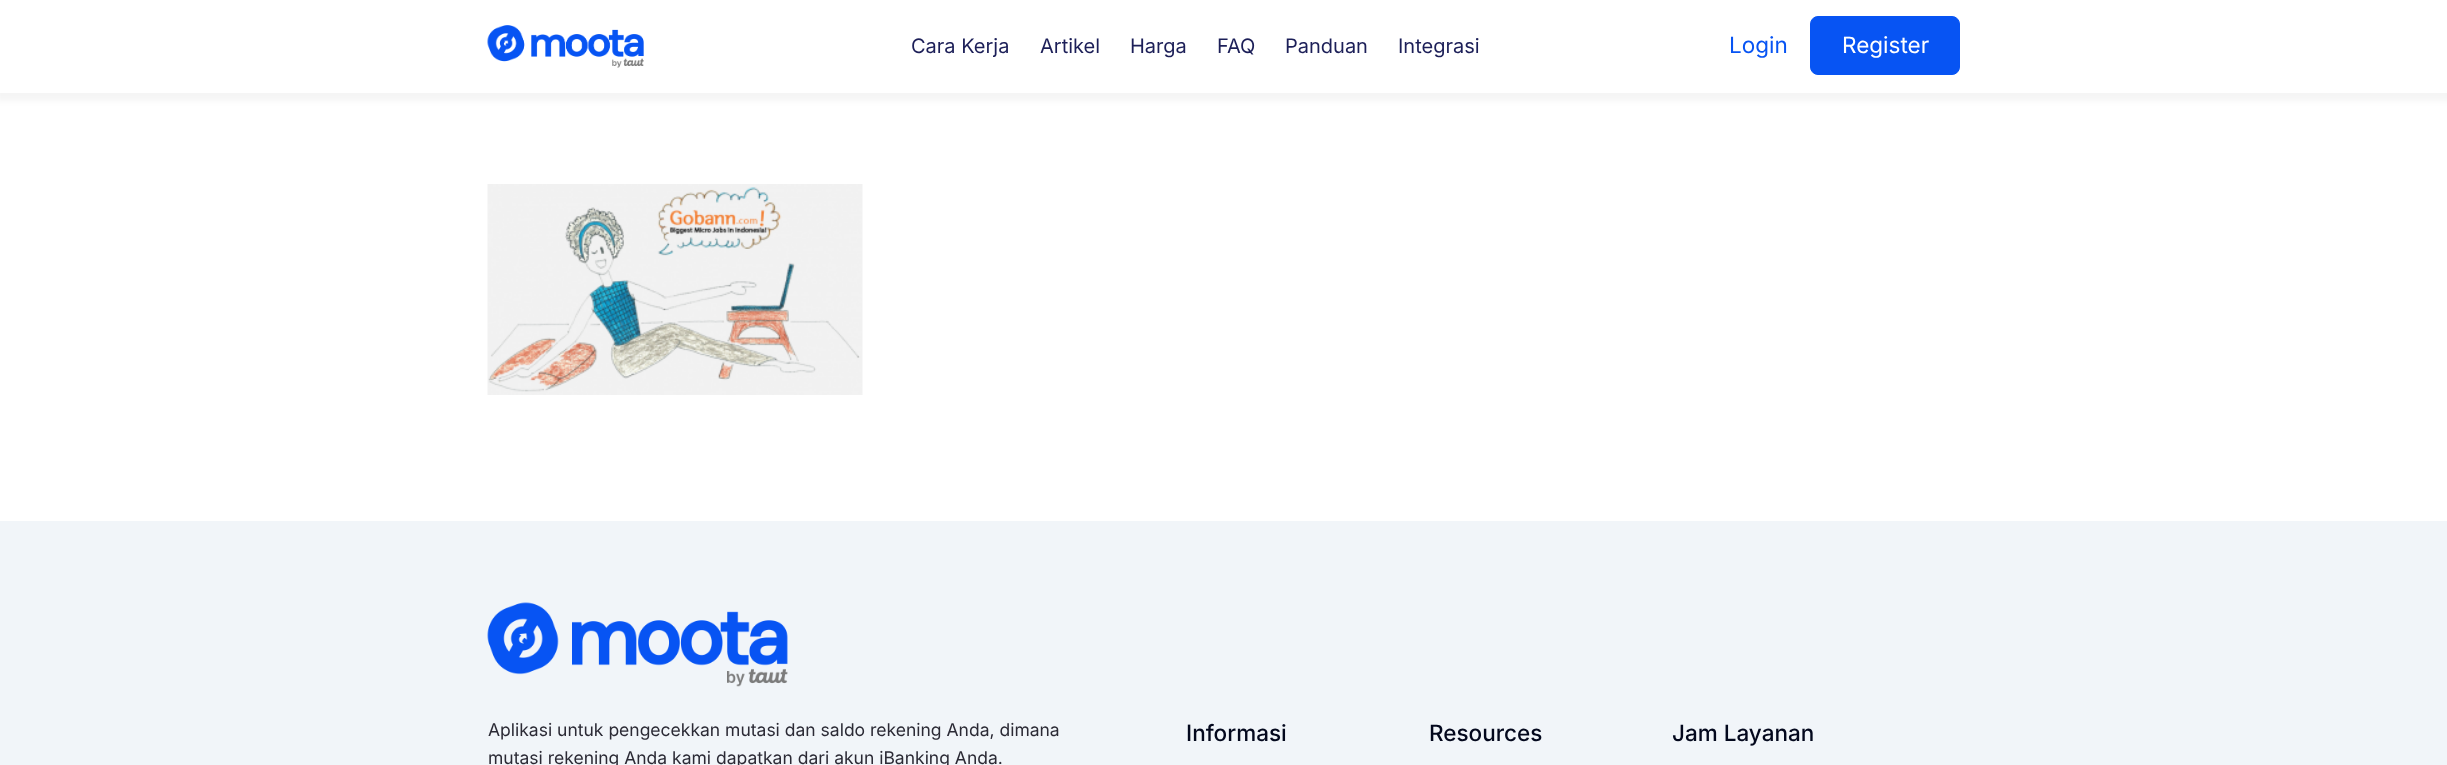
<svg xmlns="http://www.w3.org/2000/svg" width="2447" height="765">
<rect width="100%" height="100%" fill="#fff"/>
<rect x="-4" y="-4" width="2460" height="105" fill="#0000000a" filter="blur(3px)"/>
<rect width="2447" height="93" fill="#fff"/>
<image x="487" y="25" width="157" height="43" href="media/1.png"/>
<text x="911" y="53" style="font-family:Inter;font-size:20px;fill:#1c1f58">Cara Kerja</text>
<text x="1040" y="53" style="font-family:Inter;font-size:20px;fill:#1c1f58">Artikel</text>
<text x="1130" y="53" style="font-family:Inter;font-size:20px;fill:#1c1f58">Harga</text>
<text x="1217" y="53" style="font-family:Inter;font-size:20px;fill:#1c1f58">FAQ</text>
<text x="1285" y="53" style="font-family:Inter;font-size:20px;fill:#1c1f58">Panduan</text>
<text x="1398" y="53" style="font-family:Inter;font-size:20px;fill:#1c1f58">Integrasi</text>
<text x="1729" y="53" style="font-family:Inter;font-size:22.5px;fill:#0754f3">Login</text>
<rect x="1810.5" y="16.5" width="149" height="58" rx="7.5" fill="#0754f3" stroke="#0754f3"/>
<text x="1842" y="53" style="font-family:Inter;font-size:22.5px;fill:#fff">Register</text>
<image x="487" y="184" width="376" height="211" href="media/2.png"/>
<rect y="521" width="2447" height="244" fill="#f1f5f9"/>
<image x="487" y="602" width="301" height="85" href="media/3.png"/>
<text x="488" y="736" style="font-family:Inter;font-size:17.5px;fill:#2b2a35">Aplikasi untuk pengecekkan mutasi dan saldo rekening Anda, dimana</text>
<text x="488" y="764" style="font-family:Inter;font-size:17.5px;fill:#2b2a35">mutasi rekening Anda kami dapatkan dari akun iBanking Anda.</text>
<text x="1186" y="741" style="font-family:Inter;font-size:22.5px;font-weight:500;fill:#03081d">Informasi</text>
<text x="1429" y="741" style="font-family:Inter;font-size:22.5px;font-weight:500;fill:#03081d">Resources</text>
<text x="1672" y="741" style="font-family:Inter;font-size:22.5px;font-weight:500;fill:#03081d">Jam Layanan</text>
</svg>
